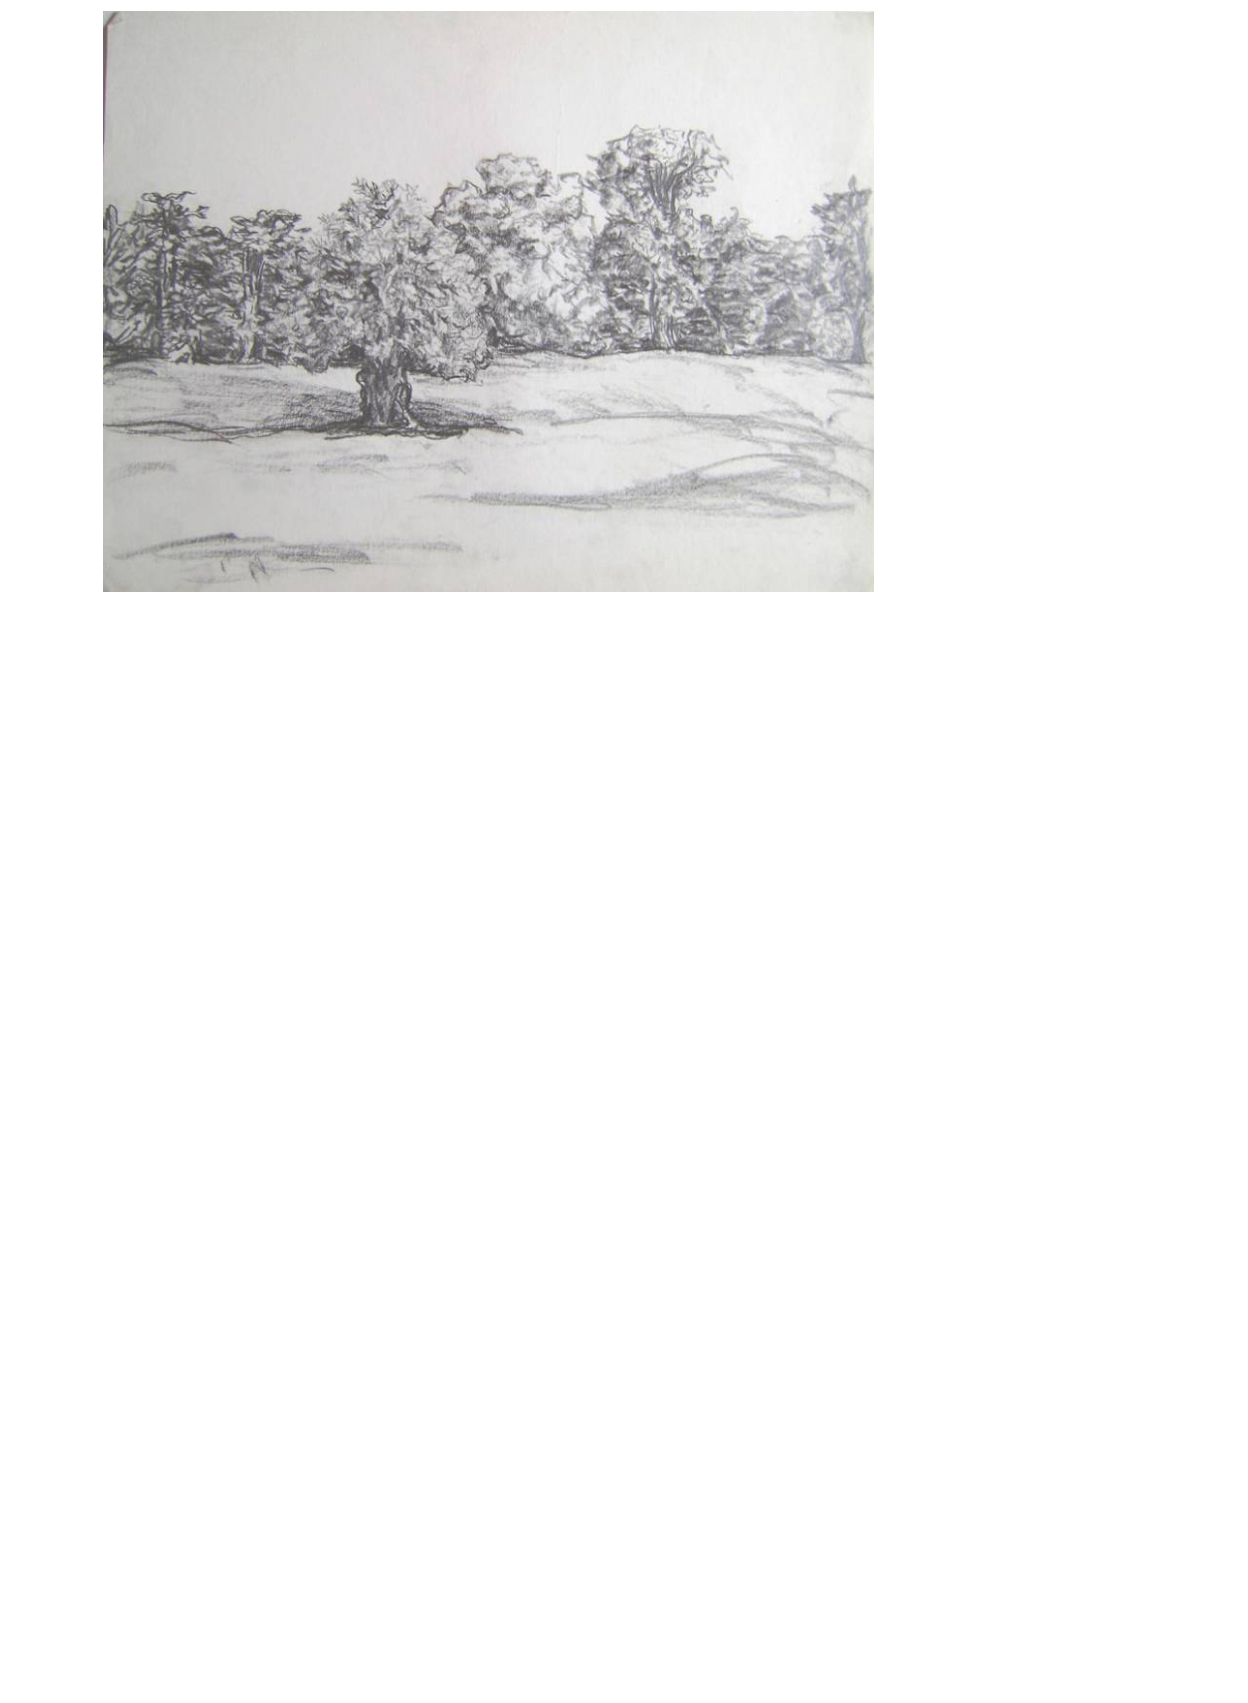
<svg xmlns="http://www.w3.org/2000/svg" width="1248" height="1703">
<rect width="100%" height="100%" fill="#fff"/>
<image x="103" y="11" width="771" height="581" href="media/1.png"/>
</svg>
